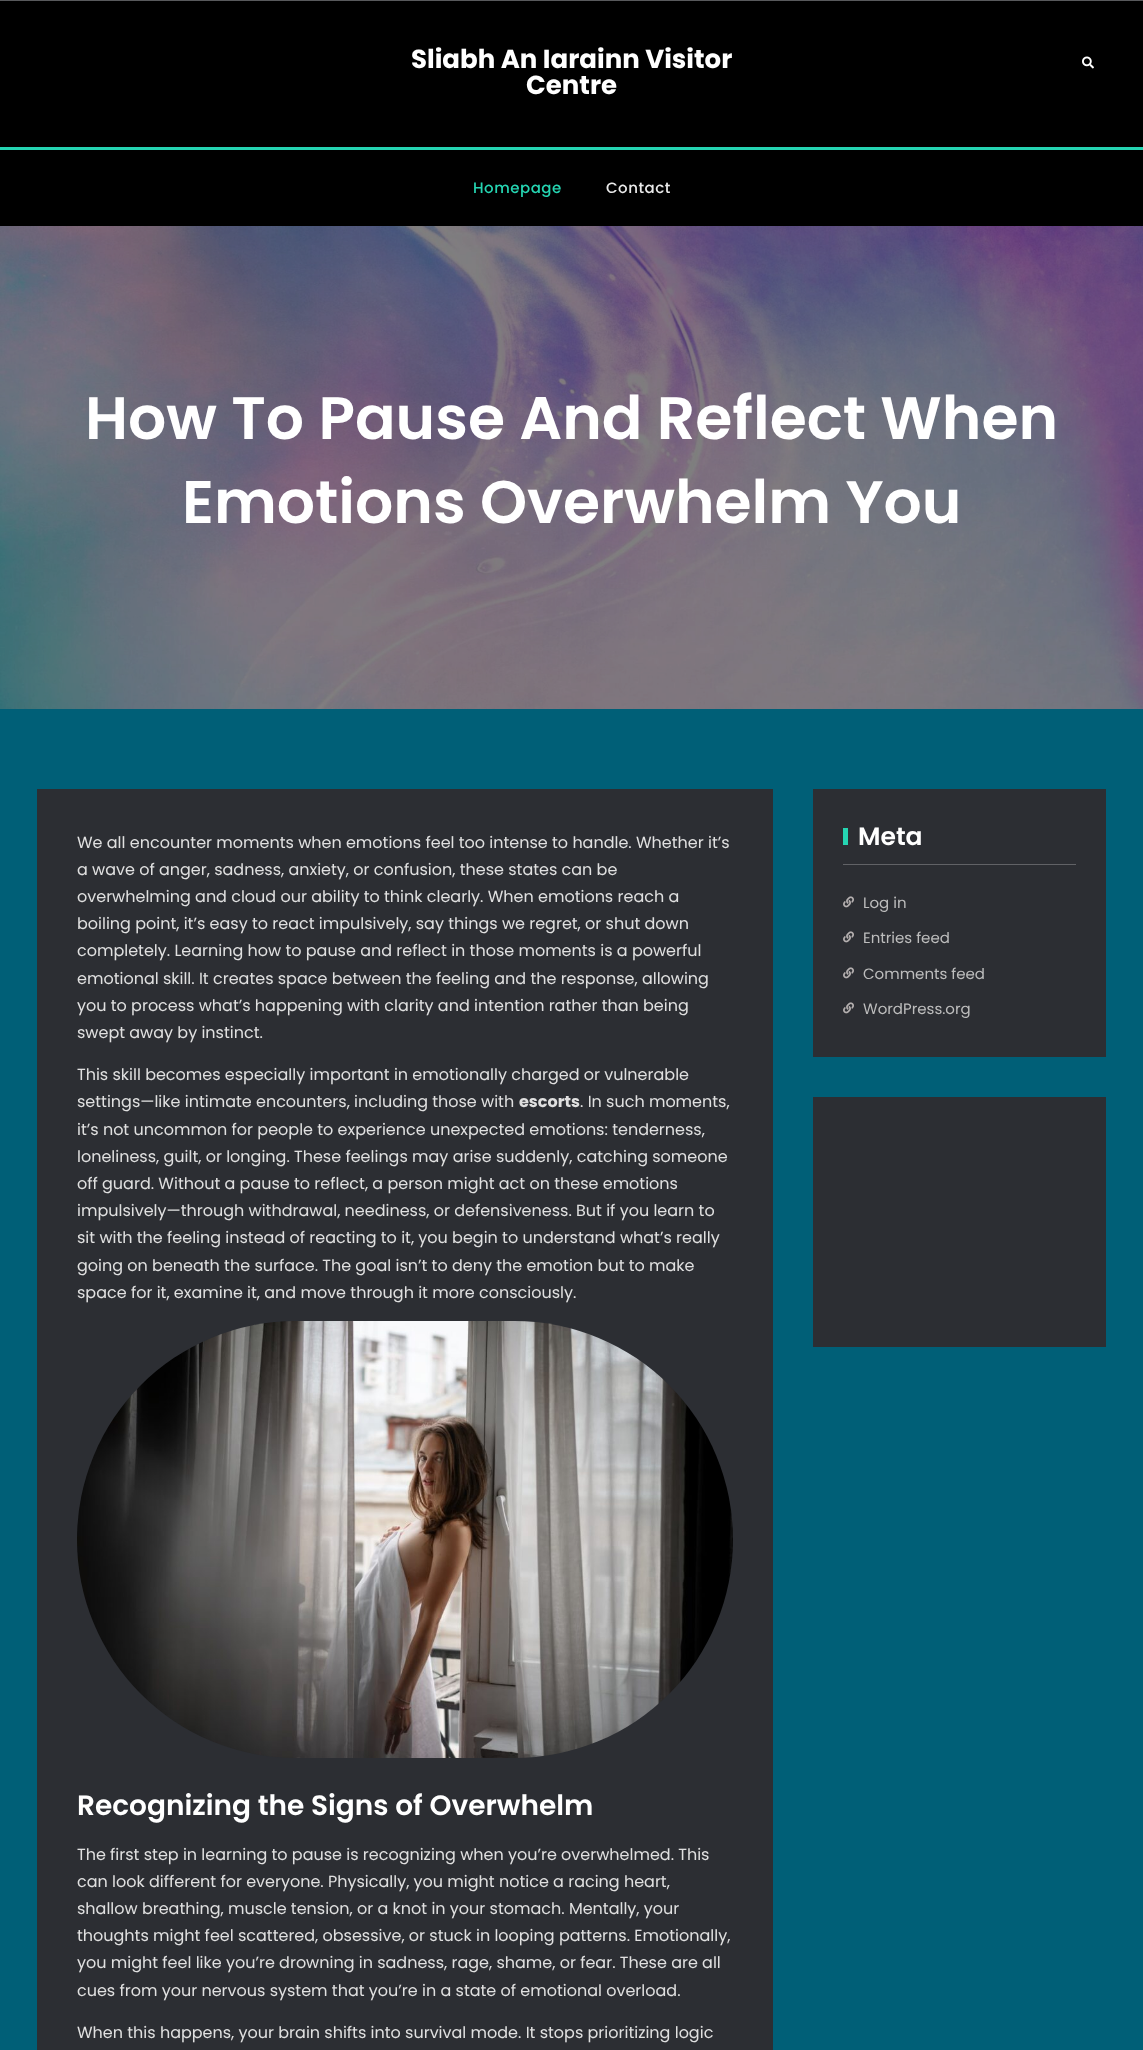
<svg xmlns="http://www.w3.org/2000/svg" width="1143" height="2050">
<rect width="100%" height="100%" fill="#005f77"/>
<rect width="1143" height="1" fill="#58595c"/>
<rect y="1" width="1143" height="146" fill="#000"/>
<text x="411" y="68" style="font-family:Poppins;font-size:26px;font-weight:bold;fill:#fff">Sliabh An Iarainn Visitor</text>
<text x="526" y="94" style="font-family:Poppins;font-size:26px;font-weight:bold;fill:#fff">Centre</text>
<image x="1082" y="56" width="12" height="13" href="media/1.png"/>
<rect y="150" width="1143" height="76" fill="#000"/>
<rect y="147" width="1143" height="3" fill="#25d5b2"/>
<text x="473" y="193" style="font-family:Poppins;font-size:15px;font-weight:500;letter-spacing:0.5px;fill:#25d5b2">Homepage</text>
<text x="606" y="193" style="font-family:Poppins;font-size:15px;font-weight:500;letter-spacing:0.5px;fill:#eaeaea">Contact</text>
<image x="0" y="226" width="1143" height="483" href="media/2.png"/>
<text x="85" y="439" style="font-family:Poppins;font-size:60px;font-weight:600;fill:#fff">How To Pause And Reflect When</text>
<text x="182" y="523" style="font-family:Poppins;font-size:60px;font-weight:600;fill:#fff">Emotions Overwhelm You</text>
<rect x="37" y="789" width="736" height="1261" fill="#2c2e33"/>
<text x="77" y="848" style="font-family:Poppins;font-size:16px;fill:#e0e0e0">We all encounter moments when emotions feel too intense to handle. Whether it’s</text>
<text x="77" y="875" style="font-family:Poppins;font-size:16px;fill:#e0e0e0">a wave of anger, sadness, anxiety, or confusion, these states can be</text>
<text x="77" y="902" style="font-family:Poppins;font-size:16px;fill:#e0e0e0">overwhelming and cloud our ability to think clearly. When emotions reach a</text>
<text x="77" y="929" style="font-family:Poppins;font-size:16px;fill:#e0e0e0">boiling point, it’s easy to react impulsively, say things we regret, or shut down</text>
<text x="77" y="956" style="font-family:Poppins;font-size:16px;fill:#e0e0e0">completely. Learning how to pause and reflect in those moments is a powerful</text>
<text x="77" y="984" style="font-family:Poppins;font-size:16px;fill:#e0e0e0">emotional skill. It creates space between the feeling and the response, allowing</text>
<text x="77" y="1011" style="font-family:Poppins;font-size:16px;fill:#e0e0e0">you to process what’s happening with clarity and intention rather than being</text>
<text x="77" y="1038" style="font-family:Poppins;font-size:16px;fill:#e0e0e0">swept away by instinct.</text>
<text x="77" y="1080" style="font-family:Poppins;font-size:16px;fill:#e0e0e0">This skill becomes especially important in emotionally charged or vulnerable</text>
<text x="77" y="1107" style="font-family:Poppins;font-size:16px;fill:#e0e0e0">settings—like intimate encounters, including those with</text>
<text x="519" y="1107" style="font-family:Poppins;font-size:16px;font-weight:bold;fill:#e0e0e0">escorts</text>
<text x="580" y="1107" style="font-family:Poppins;font-size:16px;fill:#e0e0e0">. In such moments,</text>
<text x="77" y="1135" style="font-family:Poppins;font-size:16px;fill:#e0e0e0">it’s not uncommon for people to experience unexpected emotions: tenderness,</text>
<text x="77" y="1162" style="font-family:Poppins;font-size:16px;fill:#e0e0e0">loneliness, guilt, or longing. These feelings may arise suddenly, catching someone</text>
<text x="77" y="1189" style="font-family:Poppins;font-size:16px;fill:#e0e0e0">off guard. Without a pause to reflect, a person might act on these emotions</text>
<text x="77" y="1216" style="font-family:Poppins;font-size:16px;fill:#e0e0e0">impulsively—through withdrawal, neediness, or defensiveness. But if you learn to</text>
<text x="77" y="1243" style="font-family:Poppins;font-size:16px;fill:#e0e0e0">sit with the feeling instead of reacting to it, you begin to understand what’s really</text>
<text x="77" y="1271" style="font-family:Poppins;font-size:16px;fill:#e0e0e0">going on beneath the surface. The goal isn’t to deny the emotion but to make</text>
<text x="77" y="1298" style="font-family:Poppins;font-size:16px;fill:#e0e0e0">space for it, examine it, and move through it more consciously.</text>
<image x="77" y="1321" width="656" height="437" href="media/3.png"/>
<text x="77" y="1815" style="font-family:Poppins;font-size:28px;font-weight:600;fill:#fff">Recognizing the Signs of Overwhelm</text>
<text x="77" y="1860" style="font-family:Poppins;font-size:16px;fill:#e0e0e0">The first step in learning to pause is recognizing when you’re overwhelmed. This</text>
<text x="77" y="1887" style="font-family:Poppins;font-size:16px;fill:#e0e0e0">can look different for everyone. Physically, you might notice a racing heart,</text>
<text x="77" y="1914" style="font-family:Poppins;font-size:16px;fill:#e0e0e0">shallow breathing, muscle tension, or a knot in your stomach. Mentally, your</text>
<text x="77" y="1941" style="font-family:Poppins;font-size:16px;fill:#e0e0e0">thoughts might feel scattered, obsessive, or stuck in looping patterns. Emotionally,</text>
<text x="77" y="1968" style="font-family:Poppins;font-size:16px;fill:#e0e0e0">you might feel like you’re drowning in sadness, rage, shame, or fear. These are all</text>
<text x="77" y="1996" style="font-family:Poppins;font-size:16px;fill:#e0e0e0">cues from your nervous system that you’re in a state of emotional overload.</text>
<text x="77" y="2038" style="font-family:Poppins;font-size:16px;fill:#e0e0e0">When this happens, your brain shifts into survival mode. It stops prioritizing logic</text>
<rect x="813" y="789" width="293" height="268" fill="#2c2e33"/>
<rect x="843" y="864" width="233" height="1" fill="#616266"/>
<rect x="843" y="828" width="5" height="17" fill="#25d5b2"/>
<text x="858" y="845" style="font-family:Poppins;font-size:25px;font-weight:600;fill:#fff">Meta</text>
<image x="843" y="896" width="11" height="12" href="media/4.png"/>
<text x="863" y="908" style="font-family:Poppins;font-size:15px;fill:#bdbdbd">Log in</text>
<image x="843" y="931" width="11" height="12" href="media/4.png"/>
<text x="863" y="943" style="font-family:Poppins;font-size:15px;fill:#bdbdbd">Entries feed</text>
<image x="843" y="967" width="11" height="12" href="media/4.png"/>
<text x="863" y="979" style="font-family:Poppins;font-size:15px;fill:#bdbdbd">Comments feed</text>
<image x="843" y="1002" width="11" height="12" href="media/4.png"/>
<text x="863" y="1014" style="font-family:Poppins;font-size:15px;fill:#bdbdbd">WordPress.org</text>
<rect x="813" y="1097" width="293" height="250" fill="#2c2e33"/>
</svg>
